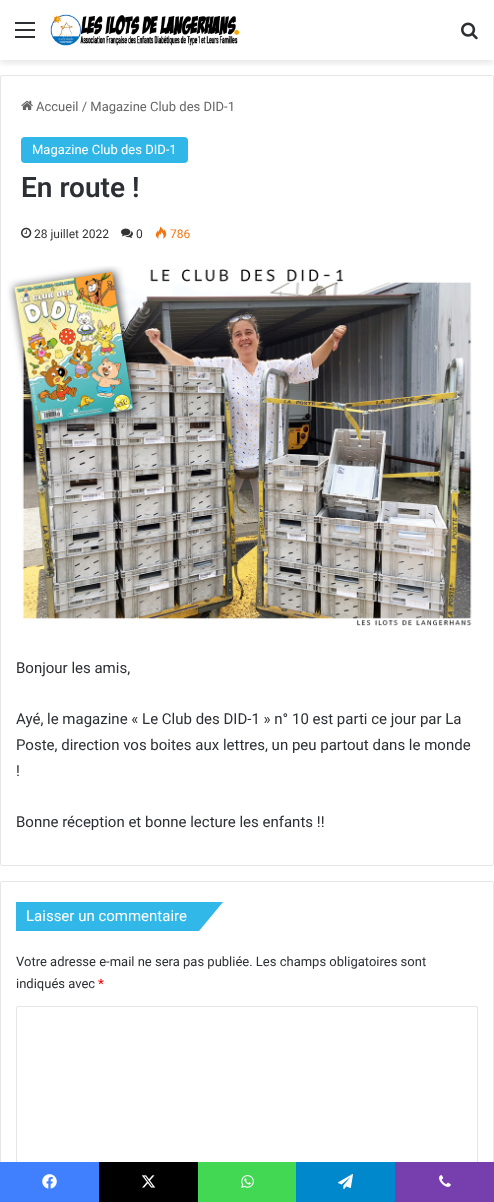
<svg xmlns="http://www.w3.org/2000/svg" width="494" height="1202">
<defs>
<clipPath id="clip1"><rect x="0" y="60" width="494" height="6"/></clipPath>
</defs>
<rect width="100%" height="100%" fill="#fff"/>
<g clip-path="url(#clip1)">
<rect y="3" width="494" height="60" fill="#0000001a" filter="blur(3.5px)"/>
</g>
<rect x="15" y="29" width="20" height="2" fill="#2c2f34"/>
<rect x="15" y="22" width="20" height="2" fill="#2c2f34"/>
<rect x="15" y="36" width="20" height="2" fill="#2c2f34"/>
<image x="50" y="14" width="190" height="32" href="media/1.png"/>
<image x="461" y="22" width="17" height="18" href="media/2.png"/>
<rect x="0.5" y="75.5" width="493" height="790" rx="1.5" fill="none" stroke="#e6e6e6"/>
<image x="21" y="100" width="12" height="11" href="media/3.png"/>
<text x="36" y="111" style="font-family:Roboto;font-size:13px;fill:#666">Accueil / Magazine Club des DID-1</text>
<rect x="21" y="137" width="167" height="26" rx="4" fill="#30b7e8"/>
<text x="32" y="154" style="font-family:Roboto;font-size:13px;fill:#fff">Magazine Club des DID-1</text>
<text x="21" y="197" style="font-family:Roboto;font-size:28px;font-weight:600;fill:#2c2f34">En route !</text>
<image x="21" y="227" width="11" height="11" href="media/4.png"/>
<text x="34" y="238" style="font-family:Roboto;font-size:12px;fill:#333">28 juillet 2022</text>
<image x="121" y="228" width="12" height="10" href="media/5.png"/>
<text x="136" y="238" style="font-family:Roboto;font-size:12px;fill:#333">0</text>
<image x="155" y="226" width="12" height="13" href="media/6.png"/>
<text x="170" y="238" style="font-family:Roboto;font-size:12px;fill:#f47512">786</text>
<image x="7" y="266" width="465" height="360" href="media/7.png"/>
<text x="16" y="673" style="font-family:Roboto;font-size:15px;fill:#2c2f34">Bonjour les amis,</text>
<text x="16" y="724" style="font-family:Roboto;font-size:15px;fill:#2c2f34">Ayé, le magazine « Le Club des DID-1 » n° 10 est parti ce jour par La</text>
<text x="16" y="750" style="font-family:Roboto;font-size:15px;fill:#2c2f34">Poste, direction vos boites aux lettres, un peu partout dans le monde</text>
<text x="16" y="776" style="font-family:Roboto;font-size:15px;fill:#2c2f34">!</text>
<text x="16" y="827" style="font-family:Roboto;font-size:15px;fill:#2c2f34">Bonne réception et bonne lecture les enfants !!</text>
<rect x="0.5" y="881.5" width="493" height="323" rx="1.5" fill="none" stroke="#e6e6e6"/>
<rect x="16" y="902" width="81" height="29" fill="#32b8e8"/>
<path d="M97 902h126l-24 29h-127z" fill="#32b8e8"/>
<text x="26" y="921" style="font-family:Roboto;font-size:15px;fill:#fff">Laisser un commentaire</text>
<text x="16" y="966" style="font-family:Roboto;font-size:13px;fill:#2c2f34">Votre adresse e-mail ne sera pas publiée. Les champs obligatoires sont</text>
<text x="16" y="988" style="font-family:Roboto;font-size:13px;fill:#2c2f34">indiqués avec</text>
<text x="98" y="988" style="font-family:Roboto;font-size:13px;font-weight:600;fill:#f00">*</text>
<rect x="16.5" y="1006.5" width="461" height="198" rx="1.5" fill="none" stroke="#e6e6e6"/>
<rect y="1162" width="99" height="40" fill="#4080ff"/>
<image x="42" y="1174" width="15" height="15" href="media/8.png"/>
<rect x="99" y="1162" width="99" height="40" fill="#000"/>
<image x="141" y="1175" width="15" height="13" href="media/9.png"/>
<rect x="198" y="1162" width="98" height="40" fill="#43d854"/>
<image x="241" y="1175" width="13" height="13" href="media/10.png"/>
<rect x="296" y="1162" width="99" height="40" fill="#08c"/>
<image x="338" y="1174" width="15" height="15" href="media/11.png"/>
<rect x="395" y="1162" width="99" height="40" fill="#773ead"/>
<image x="439" y="1175" width="12" height="12" href="media/12.png"/>
</svg>
